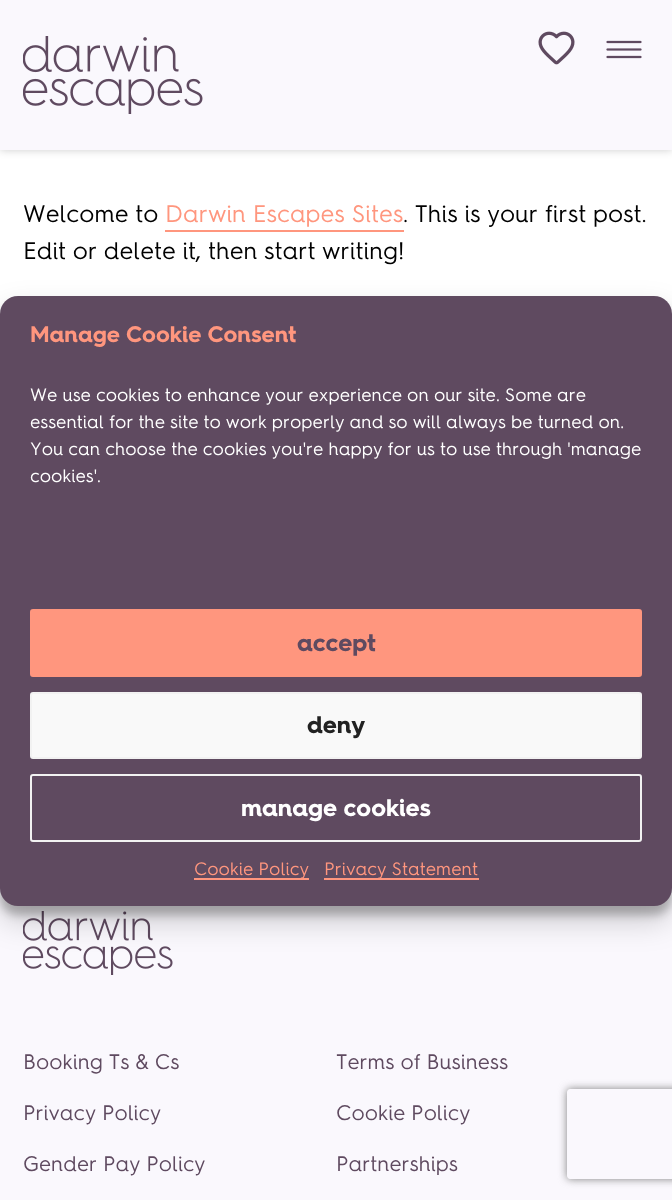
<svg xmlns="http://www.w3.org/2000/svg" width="672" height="1200">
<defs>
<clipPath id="clip1"><path d="M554 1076h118v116h-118zm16 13h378c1.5 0 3 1.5 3 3v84c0 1.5-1.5 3-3 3h-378c-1.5 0-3-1.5-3-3v-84c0-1.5 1.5-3 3-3z" clip-rule="evenodd"/></clipPath>
</defs>
<rect width="100%" height="100%" fill="#fff"/>
<rect width="672" height="150" fill="#00000033" filter="blur(4px)"/>
<rect width="672" height="150" fill="#faf8fd"/>
<image x="23" y="36" width="180" height="78" href="media/1.png"/>
<image x="538" y="31" width="37" height="34" href="media/2.png"/>
<image x="606" y="40" width="36" height="19" href="media/3.png"/>
<text x="23" y="222" style="font-family:'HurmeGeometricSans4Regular';font-size:24px;fill:#000">Welcome to</text>
<text x="165" y="222" style="font-family:'HurmeGeometricSans4Regular';font-size:24px;fill:#ff967e">Darwin Escapes Sites</text>
<rect x="165" y="230" width="239" height="2" fill="#ff967e"/>
<text x="403" y="222" style="font-family:'HurmeGeometricSans4Regular';font-size:24px;fill:#000">. This is your first post.</text>
<text x="23" y="259" style="font-family:'HurmeGeometricSans4Regular';font-size:24px;fill:#000">Edit or delete it, then start writing!</text>
<rect y="888" width="672" height="312" fill="#faf8fd"/>
<image x="23" y="911" width="150" height="64" href="media/4.png"/>
<rect y="305" width="672" height="610" rx="18" fill="#0000003b" filter="blur(4.5px)"/>
<rect y="311" width="672" height="610" rx="18" fill="#00000030" filter="blur(15px)"/>
<rect y="296" width="672" height="610" rx="18" fill="#5f4a60"/>
<text x="30" y="342" style="font-family:'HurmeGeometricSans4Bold';font-size:22.5px;font-weight:bold;fill:#ff967e">Manage Cookie Consent</text>
<text x="30" y="401" style="font-family:'HurmeGeometricSans4Regular';font-size:18px;fill:#fff">We use cookies to enhance your experience on our site. Some are</text>
<text x="30" y="428" style="font-family:'HurmeGeometricSans4Regular';font-size:18px;fill:#fff">essential for the site to work properly and so will always be turned on.</text>
<text x="30" y="455" style="font-family:'HurmeGeometricSans4Regular';font-size:18px;fill:#fff">You can choose the cookies you're happy for us to use through 'manage</text>
<text x="30" y="482" style="font-family:'HurmeGeometricSans4Regular';font-size:18px;fill:#fff">cookies'.</text>
<rect x="31" y="610" width="610" height="66" rx="2" fill="#ff967e" stroke="#ff967e" stroke-width="2"/>
<text x="297" y="651" style="font-family:'HurmeGeometricSans4Bold';font-size:24px;font-weight:bold;fill:#5f4a60">accept</text>
<rect x="31" y="693" width="610" height="65" rx="2" fill="#f9f9f9" stroke="#f2f2f2" stroke-width="2"/>
<text x="307" y="733" style="font-family:'HurmeGeometricSans4Bold';font-size:24px;font-weight:bold;fill:#222">deny</text>
<rect x="31" y="775" width="610" height="66" rx="2" fill="none" stroke="#f2f2f2" stroke-width="2"/>
<text x="241" y="816" style="font-family:'HurmeGeometricSans4Bold';font-size:24px;font-weight:bold;fill:#fff">manage cookies</text>
<rect x="194" y="878" width="115" height="2" fill="#ff967e"/>
<text x="194" y="875" style="font-family:'HurmeGeometricSans4Regular';font-size:18px;fill:#ff967e">Cookie Policy</text>
<rect x="324" y="878" width="155" height="2" fill="#ff967e"/>
<text x="324" y="875" style="font-family:'HurmeGeometricSans4Regular';font-size:18px;fill:#ff967e">Privacy Statement</text>
<text x="23" y="1069" style="font-family:'HurmeGeometricSans4Regular';font-size:21px;fill:#5f4a60">Booking Ts &amp; Cs</text>
<text x="336" y="1069" style="font-family:'HurmeGeometricSans4Regular';font-size:21px;fill:#5f4a60">Terms of Business</text>
<text x="23" y="1120" style="font-family:'HurmeGeometricSans4Regular';font-size:21px;fill:#5f4a60">Privacy Policy</text>
<text x="336" y="1120" style="font-family:'HurmeGeometricSans4Regular';font-size:21px;fill:#5f4a60">Cookie Policy</text>
<text x="23" y="1171" style="font-family:'HurmeGeometricSans4Regular';font-size:21px;fill:#5f4a60">Gender Pay Policy</text>
<text x="336" y="1171" style="font-family:'HurmeGeometricSans4Regular';font-size:21px;fill:#5f4a60">Partnerships</text>
<g clip-path="url(#clip1)">
<rect x="567" y="1089" width="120" height="90" rx="3" fill="#808080" filter="blur(4px)"/>
</g>
</svg>
